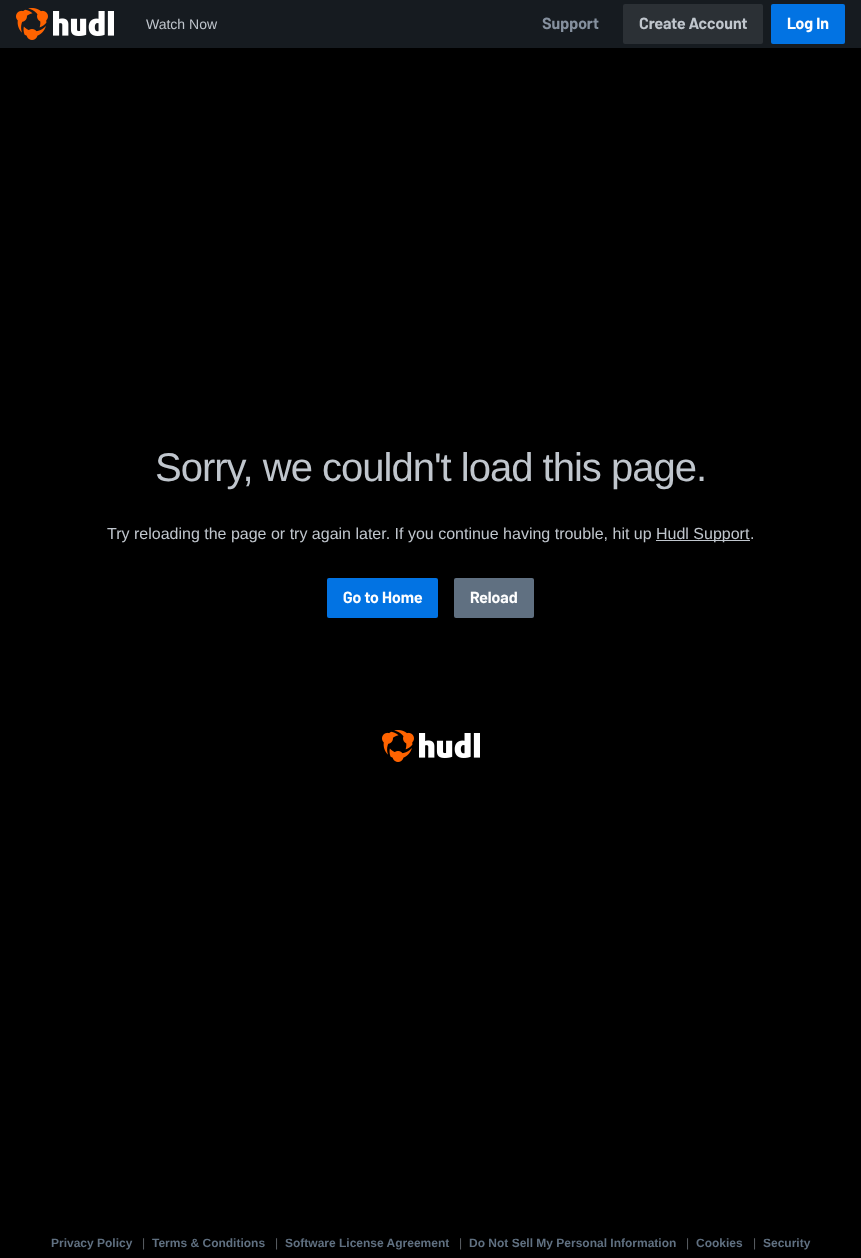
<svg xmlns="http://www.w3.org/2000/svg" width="861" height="1258">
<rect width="100%" height="100%" fill="#000"/>
<rect width="861" height="48" fill="#161b20"/>
<image x="16" y="8" width="98" height="32" href="media/1.png"/>
<text x="146" y="29" style="font-family:Liberation Sans;font-size:14px;fill:#c0c6cd">Watch Now</text>
<text x="542" y="29" style="font-family:Barlow;font-size:16px;font-weight:bold;fill:#85909e">Support</text>
<rect x="623" y="4" width="140" height="40" rx="2" fill="#2b3035"/>
<text x="639" y="29" style="font-family:Barlow;font-size:16px;font-weight:bold;fill:#c0c6cd">Create Account</text>
<rect x="771" y="4" width="74" height="40" rx="2" fill="#0273e3"/>
<text x="787" y="29" style="font-family:Barlow;font-size:16px;font-weight:bold;fill:#fefefe">Log In</text>
<text x="155" y="481" style="font-family:Liberation Sans;font-size:40px;letter-spacing:-1px;fill:#c0c6cd">Sorry, we couldn't load this page.</text>
<text x="107" y="539" style="font-family:Liberation Sans;font-size:16px;fill:#c0c6cd">Try reloading the page or try again later. If you continue having trouble, hit up</text>
<rect x="656" y="540" width="94" height="1" fill="#c0c6cd"/>
<text x="656" y="539" style="font-family:Liberation Sans;font-size:16px;fill:#c0c6cd">Hudl Support</text>
<text x="750" y="539" style="font-family:Liberation Sans;font-size:16px;fill:#c0c6cd">.</text>
<rect x="327" y="578" width="111" height="40" rx="2" fill="#0273e3"/>
<text x="343" y="603" style="font-family:Barlow;font-size:16px;font-weight:bold;fill:#fefefe">Go to Home</text>
<rect x="454" y="578" width="80" height="40" rx="2" fill="#607081"/>
<text x="470" y="603" style="font-family:Barlow;font-size:16px;font-weight:bold;fill:#fefefe">Reload</text>
<image x="382" y="730" width="98" height="32" href="media/2.png"/>
<text x="51" y="1247" style="font-family:Liberation Sans;font-size:12px;font-weight:bold;fill:#607081">Privacy Policy</text>
<text x="142" y="1247" style="font-family:Liberation Sans;font-size:12px;fill:#5c6166">|</text>
<text x="152" y="1247" style="font-family:Liberation Sans;font-size:12px;font-weight:bold;fill:#607081">Terms &amp; Conditions</text>
<text x="275" y="1247" style="font-family:Liberation Sans;font-size:12px;fill:#5c6166">|</text>
<text x="285" y="1247" style="font-family:Liberation Sans;font-size:12px;font-weight:bold;fill:#607081">Software License Agreement</text>
<text x="459" y="1247" style="font-family:Liberation Sans;font-size:12px;fill:#5c6166">|</text>
<text x="469" y="1247" style="font-family:Liberation Sans;font-size:12px;font-weight:bold;fill:#607081">Do Not Sell My Personal Information</text>
<text x="686" y="1247" style="font-family:Liberation Sans;font-size:12px;fill:#5c6166">|</text>
<text x="696" y="1247" style="font-family:Liberation Sans;font-size:12px;font-weight:bold;fill:#607081">Cookies</text>
<text x="753" y="1247" style="font-family:Liberation Sans;font-size:12px;fill:#5c6166">|</text>
<text x="763" y="1247" style="font-family:Liberation Sans;font-size:12px;font-weight:bold;fill:#607081">Security</text>
</svg>
